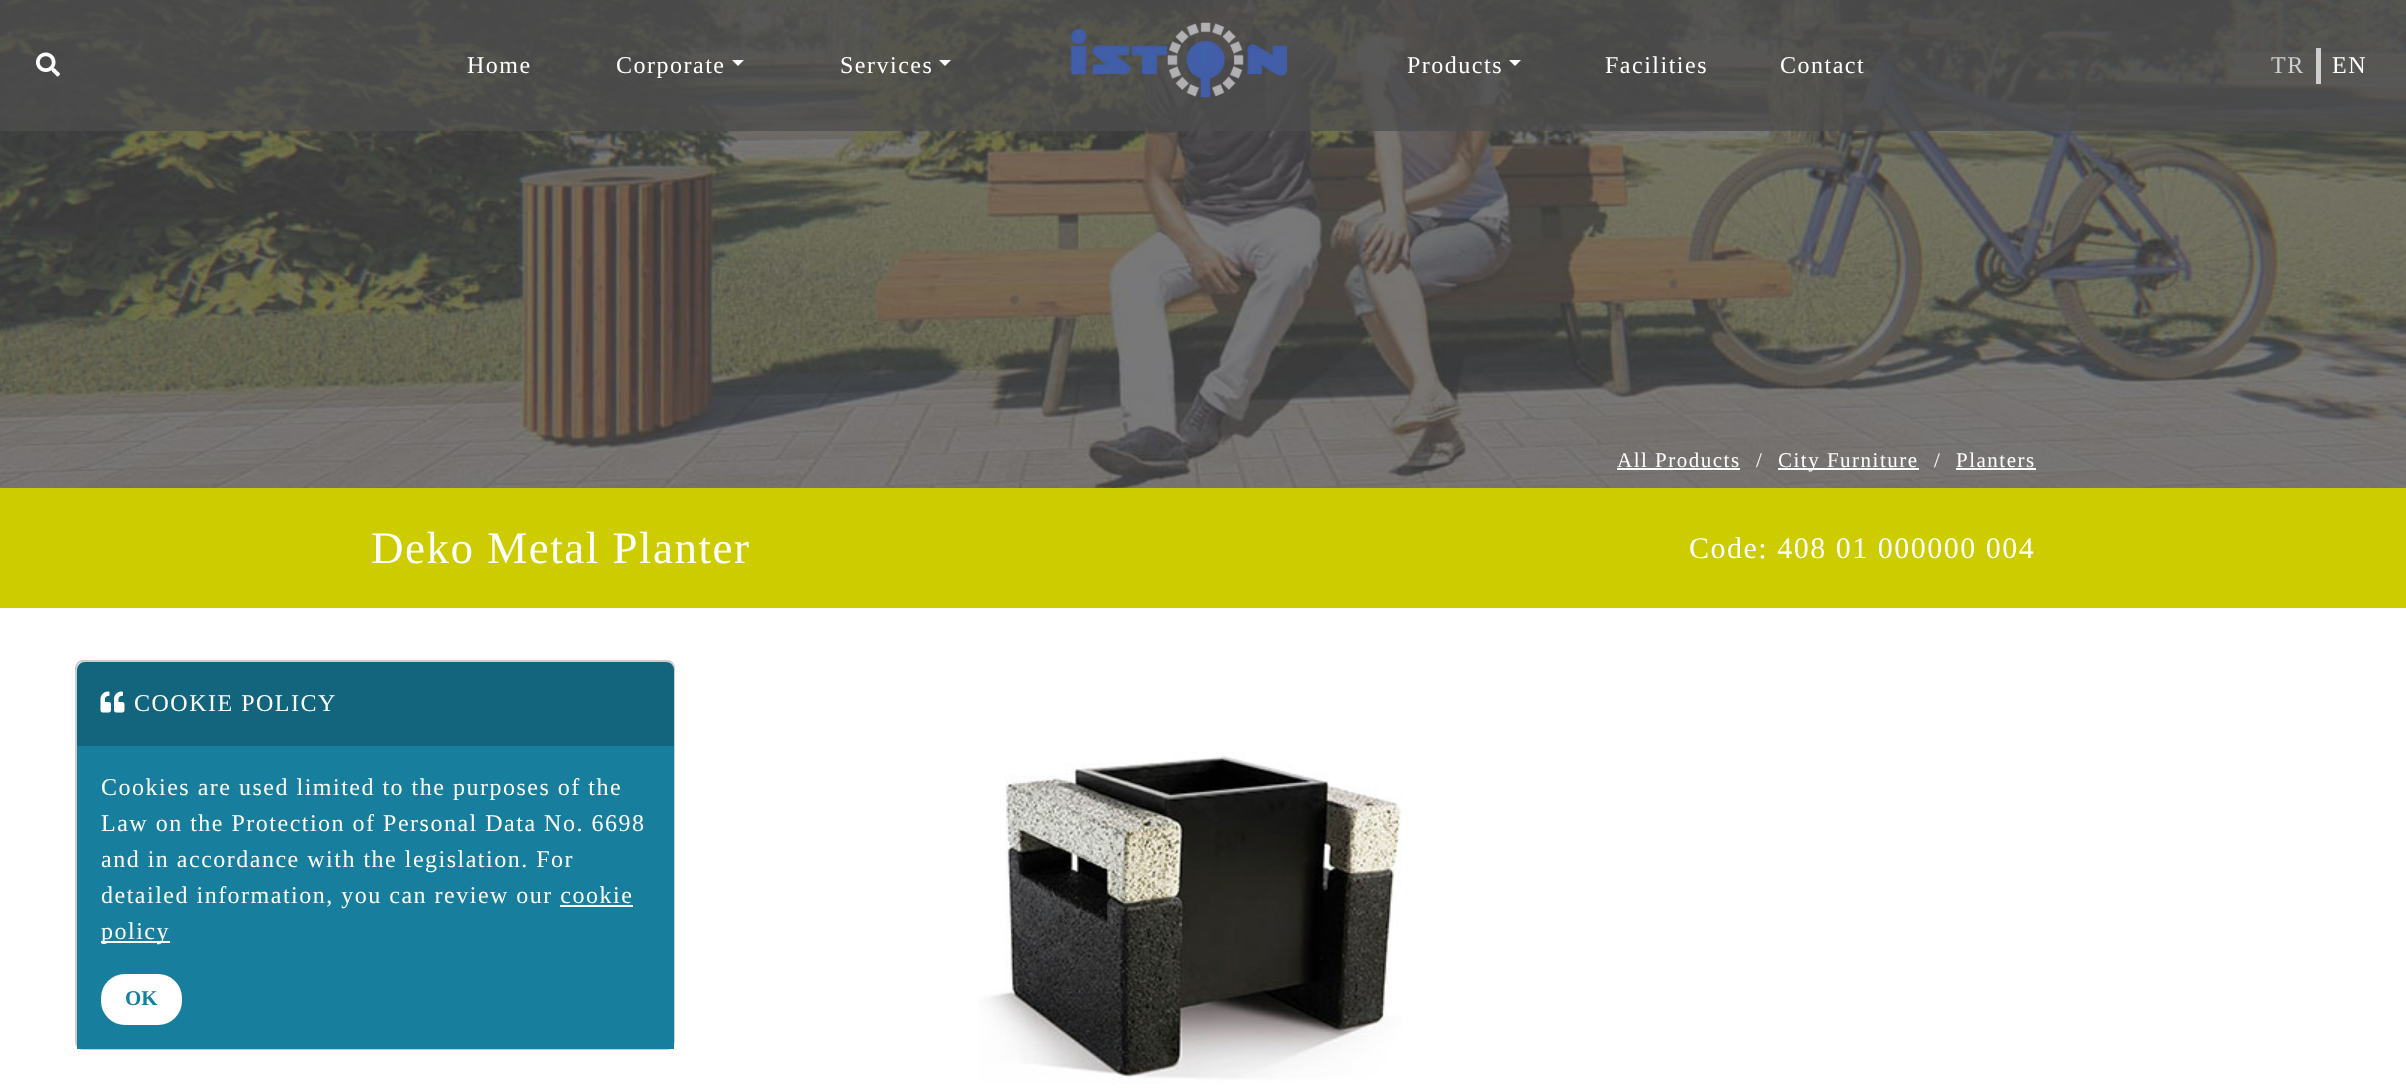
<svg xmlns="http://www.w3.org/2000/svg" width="2406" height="1092">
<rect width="100%" height="100%" fill="#fff"/>
<image x="0" y="0" width="2406" height="488" href="media/1.png"/>
<rect width="2406" height="131" fill="#4d4d4dbf"/>
<image x="36" y="52" width="24" height="25" href="media/2.png"/>
<text x="467" y="73" style="font-family:Liberation Serif;font-size:24px;letter-spacing:1.5px;fill:#fff">Home</text>
<text x="616" y="73" style="font-family:Liberation Serif;font-size:24px;letter-spacing:1.5px;fill:#fff">Corporate</text>
<path d="M732 60h12l-6 6z" fill="#fff"/>
<text x="840" y="73" style="font-family:Liberation Serif;font-size:24px;letter-spacing:1.5px;fill:#fff">Services</text>
<path d="M939 60h12l-6 6z" fill="#fff"/>
<image x="1071" y="22" width="216" height="76" href="media/3.png"/>
<text x="1407" y="73" style="font-family:Liberation Serif;font-size:24px;letter-spacing:1.5px;fill:#fff">Products</text>
<path d="M1509 60h12l-6 6z" fill="#fff"/>
<text x="1605" y="73" style="font-family:Liberation Serif;font-size:24px;letter-spacing:1.5px;fill:#fff">Facilities</text>
<text x="1780" y="73" style="font-family:Liberation Serif;font-size:24px;letter-spacing:1.5px;fill:#fff">Contact</text>
<text x="2271" y="73" style="font-family:Liberation Serif;font-size:24px;letter-spacing:1.5px;fill:#cecece">TR</text>
<rect x="2316" y="48" width="5" height="36" fill="#cecece"/>
<text x="2332" y="73" style="font-family:Liberation Serif;font-size:24px;letter-spacing:1.5px;fill:#fff">EN</text>
<text x="1617" y="467" style="font-family:Liberation Serif;font-size:21px;letter-spacing:1.5px;fill:#fff">All Products</text>
<rect x="1617" y="468" width="123" height="2" fill="#fff"/>
<text x="1756" y="467" style="font-family:Liberation Serif;font-size:21px;letter-spacing:1.5px;fill:#fff">/</text>
<rect x="1778" y="468" width="141" height="2" fill="#fff"/>
<text x="1778" y="467" style="font-family:Liberation Serif;font-size:21px;letter-spacing:1.5px;fill:#fff">City Furniture</text>
<text x="1934" y="467" style="font-family:Liberation Serif;font-size:21px;letter-spacing:1.5px;fill:#fff">/</text>
<text x="1956" y="467" style="font-family:Liberation Serif;font-size:21px;letter-spacing:1.5px;fill:#fff">Planters</text>
<rect x="1956" y="468" width="80" height="2" fill="#fff"/>
<rect y="488" width="2406" height="120" fill="#cdcc00"/>
<text x="371" y="563" style="font-family:Liberation Serif;font-size:45px;letter-spacing:1.5px;fill:#fff">Deko Metal Planter</text>
<text x="1689" y="558" style="font-family:Liberation Serif;font-size:30px;letter-spacing:1.5px;fill:#fff">Code: 408 01 000000 004</text>
<rect x="76" y="661" width="598" height="388" rx="7" fill="none" stroke="#ccc" stroke-width="2"/>
<path d="M85 662h581c4.5 0 8 3.5 8 8v76h-597v-76c0-4.5 3.5-8 8-8z" fill="#13657d"/>
<image x="100" y="691" width="25" height="22" href="media/4.png"/>
<text x="134" y="711" style="font-family:Liberation Serif;font-size:24px;letter-spacing:1.5px;fill:#fff">COOKIE POLICY</text>
<rect x="77" y="746" width="597" height="303" fill="#187e9d"/>
<text x="101" y="795" style="font-family:Liberation Serif;font-size:24px;letter-spacing:1.5px;fill:#fff">Cookies are used limited to the purposes of the</text>
<text x="101" y="831" style="font-family:Liberation Serif;font-size:24px;letter-spacing:1.5px;fill:#fff">Law on the Protection of Personal Data No. 6698</text>
<text x="101" y="867" style="font-family:Liberation Serif;font-size:24px;letter-spacing:1.5px;fill:#fff">and in accordance with the legislation. For</text>
<text x="101" y="903" style="font-family:Liberation Serif;font-size:24px;letter-spacing:1.5px;fill:#fff">detailed information, you can review our cookie</text>
<rect x="101" y="941" width="69" height="2" fill="#fff"/>
<text x="101" y="939" style="font-family:Liberation Serif;font-size:24px;letter-spacing:1.5px;fill:#fff">policy</text>
<rect x="560" y="905" width="73" height="2" fill="#fff"/>
<rect x="101" y="974" width="81" height="51" rx="24" fill="#fff"/>
<text x="125" y="1005" style="font-family:Liberation Serif;font-size:21px;font-weight:bold;fill:#187e9d">OK</text>
<image x="978" y="752" width="424" height="332" href="media/5.png"/>
</svg>
